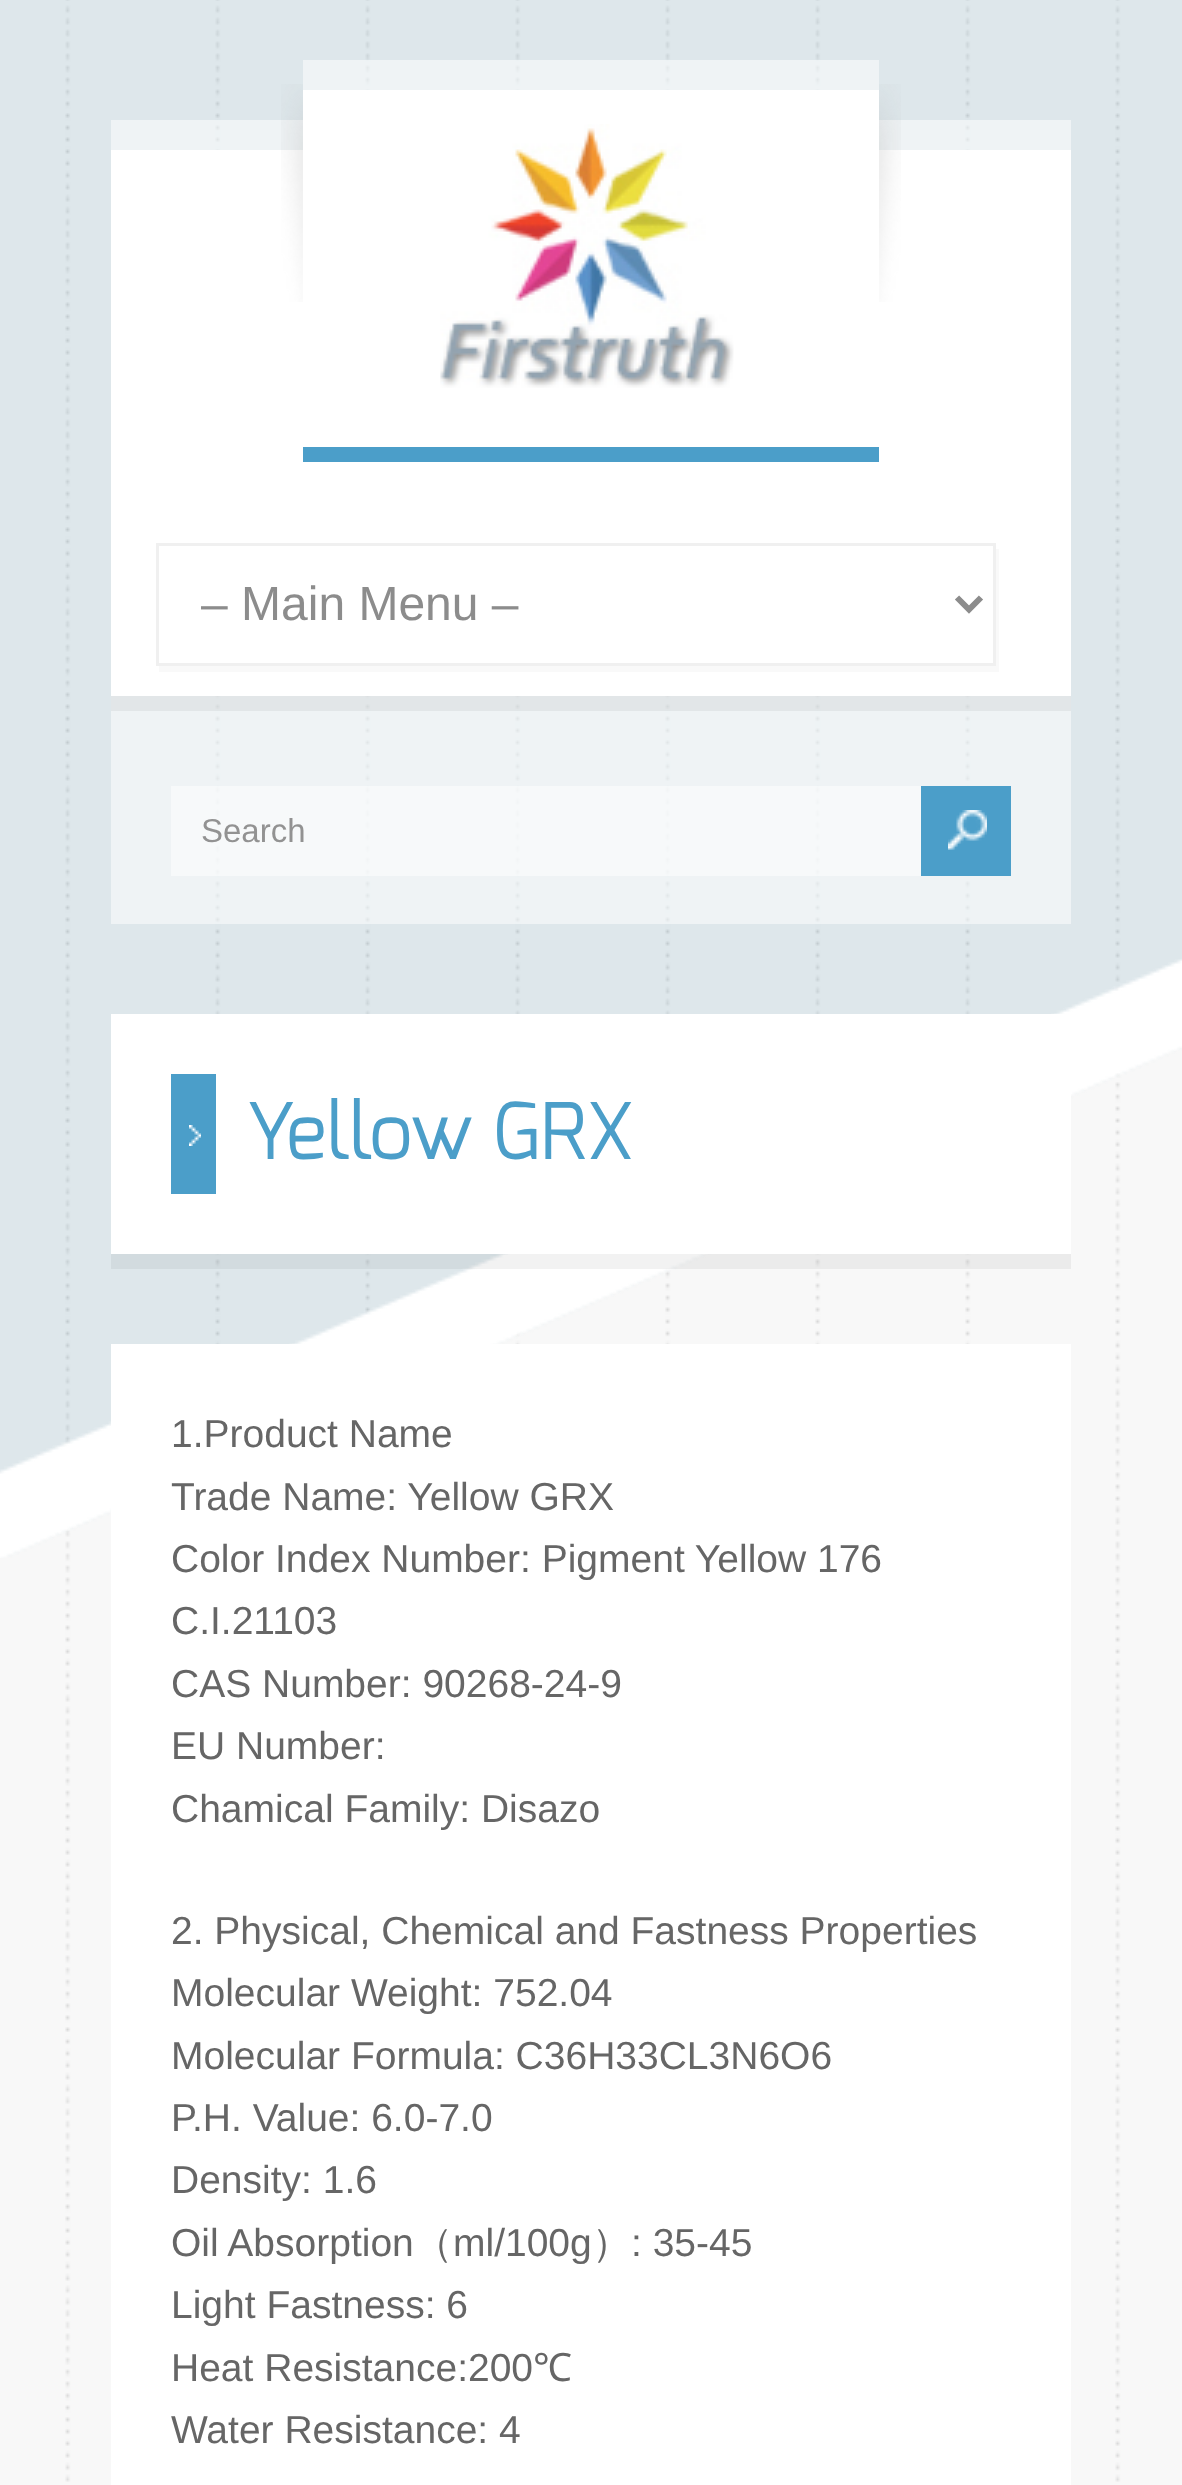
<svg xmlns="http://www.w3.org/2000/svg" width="1182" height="2485">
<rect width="100%" height="100%" fill="#fff"/>
<image x="0" y="0" width="1182" height="2485" href="media/1.png"/>
<image x="0" y="0" width="1182" height="1558" href="media/2.png"/>
<rect x="111" y="120" width="960" height="30" fill="#ffffff80"/>
<rect x="111" y="150" width="960" height="546" fill="#fff"/>
<image x="281" y="84" width="22" height="218" href="media/3.png"/>
<rect x="303" y="447" width="576" height="15" fill="#4b9ec9"/>
<rect x="303" y="60" width="576" height="30" fill="#ffffff80"/>
<rect x="303" y="90" width="576" height="60" fill="#fff"/>
<image x="440" y="124" width="294" height="264" href="media/4.png"/>
<image x="879" y="84" width="22" height="218" href="media/5.png"/>
<path d="M159 666v6h840v-123h-3v117z" fill="#f9f9f9"/>
<rect x="157.5" y="544.5" width="837" height="120" fill="none" stroke="#f0f0f0" stroke-width="3"/>
<path d="M957 597.5l12 12l12-12" fill="none" stroke="#8c8c8c" stroke-width="6"/>
<text x="201" y="620" style="font-family:Liberation Sans;font-size:48px;fill:#8c8c8c">– Main Menu –</text>
<rect x="111" y="696" width="960" height="228" fill="#ffffff80"/>
<rect x="111" y="696" width="960" height="15" fill="#0000000d"/>
<rect x="171" y="786" width="750" height="90" fill="#ffffff80"/>
<text x="201" y="842" style="font-family:Liberation Sans;font-size:33px;fill:#929292">Search</text>
<rect x="921" y="786" width="90" height="90" fill="#4b9ec9"/>
<image x="948" y="810" width="39" height="40" href="media/6.png"/>
<rect x="111" y="1254" width="960" height="15" fill="#0000000d"/>
<rect x="111" y="1014" width="960" height="240" fill="#fff"/>
<rect x="171" y="1074" width="45" height="120" fill="#4b9ec9"/>
<image x="189" y="1125" width="12" height="21" href="media/7.png"/>
<text x="246" y="1159" style="font-family:Exo;font-size:78px;fill:#4b9ec9">Yellow GRX</text>
<rect x="111" y="1344" width="960" height="1141" fill="#fff"/>
<text x="171" y="1447" style="font-family:Liberation Sans;font-size:39px;fill:#666">1.Product Name</text>
<text x="171" y="1510" style="font-family:Liberation Sans;font-size:39px;fill:#666">Trade Name: Yellow GRX</text>
<text x="171" y="1572" style="font-family:Liberation Sans;font-size:39px;fill:#666">Color Index Number: Pigment Yellow 176</text>
<text x="171" y="1634" style="font-family:Liberation Sans;font-size:39px;fill:#666">C.I.21103</text>
<text x="171" y="1697" style="font-family:Liberation Sans;font-size:39px;fill:#666">CAS Number: 90268-24-9</text>
<text x="171" y="1759" style="font-family:Liberation Sans;font-size:39px;fill:#666">EU Number:</text>
<text x="171" y="1822" style="font-family:Liberation Sans;font-size:39px;fill:#666">Chamical Family: Disazo</text>
<text x="171" y="1944" style="font-family:Liberation Sans;font-size:39px;fill:#666">2. Physical, Chemical and Fastness Properties</text>
<text x="171" y="2006" style="font-family:Liberation Sans;font-size:39px;fill:#666">Molecular Weight: 752.04</text>
<text x="171" y="2069" style="font-family:Liberation Sans;font-size:39px;fill:#666">Molecular Formula: C36H33CL3N6O6</text>
<text x="171" y="2131" style="font-family:Liberation Sans;font-size:39px;fill:#666">P.H. Value: 6.0-7.0</text>
<text x="171" y="2193" style="font-family:Liberation Sans;font-size:39px;fill:#666">Density: 1.6</text>
<text x="171" y="2256" style="font-family:Liberation Sans;font-size:39px;fill:#666">Oil Absorption</text>
<text x="414" y="2256" style="font-family:WenQuanYi Zen Hei;font-size:39px;font-weight:500;fill:#666">（</text>
<text x="453" y="2256" style="font-family:Liberation Sans;font-size:39px;fill:#666">ml/100g</text>
<text x="592" y="2256" style="font-family:WenQuanYi Zen Hei;font-size:39px;font-weight:500;fill:#666">）</text>
<text x="631" y="2256" style="font-family:Liberation Sans;font-size:39px;fill:#666">: 35-45</text>
<text x="171" y="2318" style="font-family:Liberation Sans;font-size:39px;fill:#666">Light Fastness: 6</text>
<text x="171" y="2381" style="font-family:Liberation Sans;font-size:39px;fill:#666">Heat Resistance:200</text>
<text x="533" y="2381" style="font-family:Noto Sans;font-size:39px;fill:#666">℃</text>
<text x="171" y="2443" style="font-family:Liberation Sans;font-size:39px;fill:#666">Water Resistance: 4</text>
</svg>
